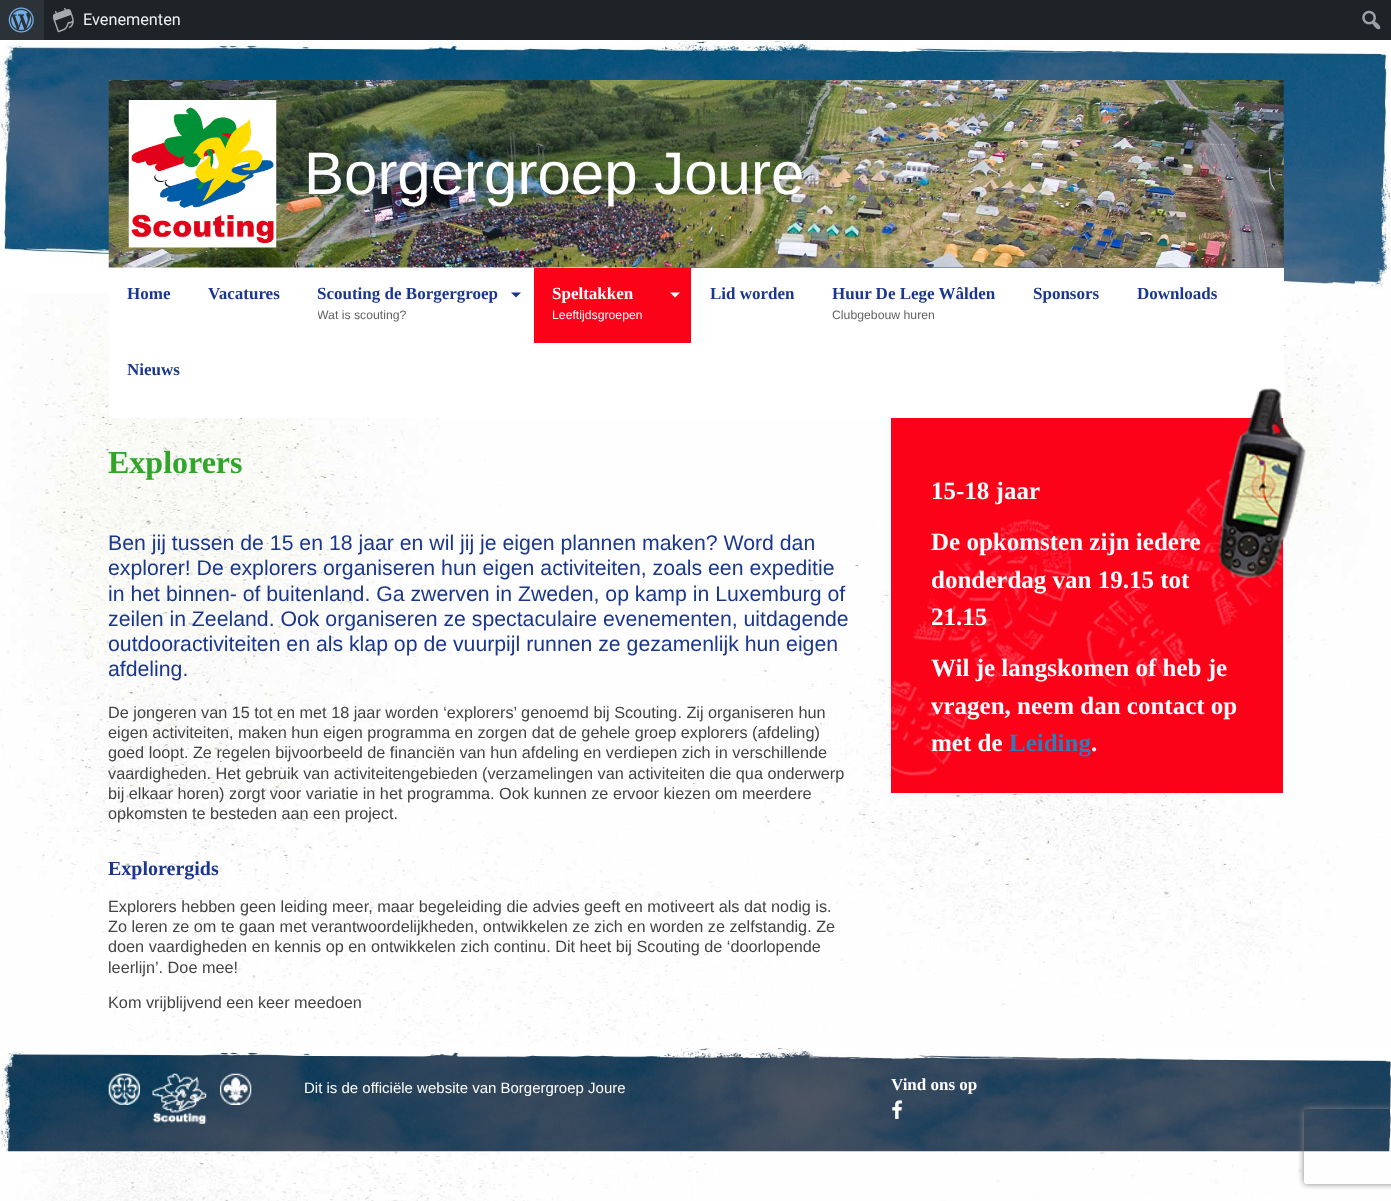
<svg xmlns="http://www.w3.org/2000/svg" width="1391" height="1201">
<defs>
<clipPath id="clip1"><rect x="318" y="308" width="180" height="35"/></clipPath>
<clipPath id="clip2"><path d="M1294 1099h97v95h-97zm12.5 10h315c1.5 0 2.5 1 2.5 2.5v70c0 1.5-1 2.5-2.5 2.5h-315c-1.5 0-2.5-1-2.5-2.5v-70c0-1.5 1-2.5 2.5-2.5z" clip-rule="evenodd"/></clipPath>
</defs>
<rect width="100%" height="100%" fill="#fff"/>
<image x="0" y="293" width="1391" height="908" href="media/1.png"/>
<rect x="44" width="1347" height="40" fill="#1d2327"/>
<rect width="44" height="40" fill="#2c3338"/>
<image x="8" y="7" width="26" height="26" href="media/2.png"/>
<image x="53" y="8" width="21" height="25" href="media/3.png"/>
<text x="83" y="25" style="font-family:Roboto;font-size:16.25px;fill:#f0f0f1">Evenementen</text>
<image x="1362" y="10" width="19" height="20" href="media/4.png"/>
<image x="0" y="40" width="1391" height="254" href="media/5.png"/>
<image x="108" y="80" width="1176" height="188" href="media/6.png"/>
<image x="128" y="100" width="149" height="148" href="media/7.png"/>
<text x="304" y="194" style="font-family:Liberation Sans;font-size:60px;fill:#fff">Borgergroep Joure</text>
<rect x="109" y="268" width="1175" height="150" fill="#fff"/>
<text x="127" y="299" style="font-family:Liberation Serif;font-size:17px;font-weight:bold;fill:#1a368d">Home</text>
<text x="208" y="299" style="font-family:Liberation Serif;font-size:17px;font-weight:bold;fill:#1a368d">Vacatures</text>
<text x="317" y="299" style="font-family:Liberation Serif;font-size:17px;font-weight:bold;fill:#1a368d">Scouting de Borgergroep</text>
<path d="M511 292.5h10l-5 5z" fill="#1a368d"/>
<g clip-path="url(#clip1)">
<text x="317" y="319" style="font-family:Liberation Sans;font-size:12.25px;fill:#626262">Wat is scouting?</text>
</g>
<rect x="534" y="268" width="157" height="75" fill="#fc0219"/>
<text x="552" y="299" style="font-family:Liberation Serif;font-size:17px;font-weight:bold;fill:#fff">Speltakken</text>
<path d="M670 292.5h10l-5 5z" fill="#fff"/>
<text x="552" y="319" style="font-family:Liberation Sans;font-size:12.25px;fill:#fff">Leeftijdsgroepen</text>
<text x="710" y="299" style="font-family:Liberation Serif;font-size:17px;font-weight:bold;fill:#1a368d">Lid worden</text>
<text x="832" y="299" style="font-family:Liberation Serif;font-size:17px;font-weight:bold;fill:#1a368d">Huur De Lege Wâlden</text>
<text x="832" y="319" style="font-family:Liberation Sans;font-size:12.25px;fill:#626262">Clubgebouw huren</text>
<text x="1033" y="299" style="font-family:Liberation Serif;font-size:17px;font-weight:bold;fill:#1a368d">Sponsors</text>
<text x="1137" y="299" style="font-family:Liberation Serif;font-size:17px;font-weight:bold;fill:#1a368d">Downloads</text>
<text x="127" y="375" style="font-family:Liberation Serif;font-size:17px;font-weight:bold;fill:#1a368d">Nieuws</text>
<text x="108" y="473" style="font-family:Liberation Serif;font-size:32px;font-weight:bold;fill:#31a529">Explorers</text>
<text x="108" y="550" style="font-family:Liberation Sans;font-size:21.25px;fill:#1a368d">Ben jij tussen de 15 en 18 jaar en wil jij je eigen plannen maken? Word dan</text>
<text x="108" y="575" style="font-family:Liberation Sans;font-size:21.25px;fill:#1a368d">explorer! De explorers organiseren hun eigen activiteiten, zoals een expeditie</text>
<text x="108" y="601" style="font-family:Liberation Sans;font-size:21.25px;fill:#1a368d">in het binnen- of buitenland. Ga zwerven in Zweden, op kamp in Luxemburg of</text>
<text x="108" y="626" style="font-family:Liberation Sans;font-size:21.25px;fill:#1a368d">zeilen in Zeeland. Ook organiseren ze spectaculaire evenementen, uitdagende</text>
<text x="108" y="651" style="font-family:Liberation Sans;font-size:21.25px;fill:#1a368d">outdooractiviteiten en als klap op de vuurpijl runnen ze gezamenlijk hun eigen</text>
<text x="108" y="676" style="font-family:Liberation Sans;font-size:21.25px;fill:#1a368d">afdeling.</text>
<text x="108" y="718" style="font-family:Liberation Sans;font-size:16.25px;fill:#434343">De jongeren van 15 tot en met 18 jaar worden ‘explorers’ genoemd bij Scouting. Zij organiseren hun</text>
<text x="108" y="738" style="font-family:Liberation Sans;font-size:16.25px;fill:#434343">eigen activiteiten, maken hun eigen programma en zorgen dat de gehele groep explorers (afdeling)</text>
<text x="108" y="758" style="font-family:Liberation Sans;font-size:16.25px;fill:#434343">goed loopt. Ze regelen bijvoorbeeld de financiën van hun afdeling en verdiepen zich in verschillende</text>
<text x="108" y="779" style="font-family:Liberation Sans;font-size:16.25px;fill:#434343">vaardigheden. Het gebruik van activiteitengebieden (verzamelingen van activiteiten die qua onderwerp</text>
<text x="108" y="799" style="font-family:Liberation Sans;font-size:16.25px;fill:#434343">bij elkaar horen) zorgt voor variatie in het programma. Ook kunnen ze ervoor kiezen om meerdere</text>
<text x="108" y="819" style="font-family:Liberation Sans;font-size:16.25px;fill:#434343">opkomsten te besteden aan een project.</text>
<text x="108" y="875" style="font-family:Liberation Serif;font-size:20px;font-weight:bold;fill:#1a368d">Explorergids</text>
<text x="108" y="912" style="font-family:Liberation Sans;font-size:16.25px;fill:#434343">Explorers hebben geen leiding meer, maar begeleiding die advies geeft en motiveert als dat nodig is.</text>
<text x="108" y="932" style="font-family:Liberation Sans;font-size:16.25px;fill:#434343">Zo leren ze om te gaan met verantwoordelijkheden, ontwikkelen ze zich en worden ze zelfstandig. Ze</text>
<text x="108" y="952" style="font-family:Liberation Sans;font-size:16.25px;fill:#434343">doen vaardigheden en kennis op en ontwikkelen zich continu. Dit heet bij Scouting de ‘doorlopende</text>
<text x="108" y="973" style="font-family:Liberation Sans;font-size:16.25px;fill:#434343">leerlijn’. Doe mee!</text>
<text x="108" y="1008" style="font-family:Liberation Sans;font-size:16.25px;fill:#434343">Kom vrijblijvend een keer meedoen</text>
<rect x="891" y="418" width="392" height="375" fill="#fc0219"/>
<image x="891" y="455" width="392" height="321" href="media/8.png"/>
<text x="931" y="499" style="font-family:Liberation Serif;font-size:25px;font-weight:bold;fill:#fff">15-18 jaar</text>
<image x="1218" y="388" width="88" height="191" href="media/9.png"/>
<text x="931" y="550" style="font-family:Liberation Serif;font-size:25px;font-weight:bold;fill:#fff">De opkomsten zijn iedere</text>
<text x="931" y="588" style="font-family:Liberation Serif;font-size:25px;font-weight:bold;fill:#fff">donderdag van 19.15 tot</text>
<text x="931" y="625" style="font-family:Liberation Serif;font-size:25px;font-weight:bold;fill:#fff">21.15</text>
<text x="931" y="676" style="font-family:Liberation Serif;font-size:25px;font-weight:bold;fill:#fff">Wil je langskomen of heb je</text>
<text x="931" y="714" style="font-family:Liberation Serif;font-size:25px;font-weight:bold;fill:#fff">vragen, neem dan contact op</text>
<text x="931" y="751" style="font-family:Liberation Serif;font-size:25px;font-weight:bold;fill:#fff">met de</text>
<text x="1009" y="751" style="font-family:Liberation Serif;font-size:25px;font-weight:bold;fill:#337ab7">Leiding</text>
<text x="1091" y="751" style="font-family:Liberation Serif;font-size:25px;font-weight:bold;fill:#fff">.</text>
<image x="0" y="1047" width="1391" height="105" href="media/10.png"/>
<image x="108" y="1073" width="32" height="32" href="media/11.png"/>
<image x="152" y="1073" width="55" height="51" href="media/12.png"/>
<image x="220" y="1073" width="32" height="32" href="media/13.png"/>
<text x="304" y="1093" style="font-family:Liberation Sans;font-size:15px;fill:#fff">Dit is de officiële website van Borgergroep Joure</text>
<text x="891" y="1090" style="font-family:Liberation Serif;font-size:17px;font-weight:bold;fill:#fff">Vind ons op</text>
<image x="892" y="1100" width="10" height="19" href="media/14.png"/>
<g clip-path="url(#clip2)">
<rect x="1304" y="1109" width="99" height="75" rx="2.5" fill="#808080" filter="blur(3px)"/>
</g>
</svg>
